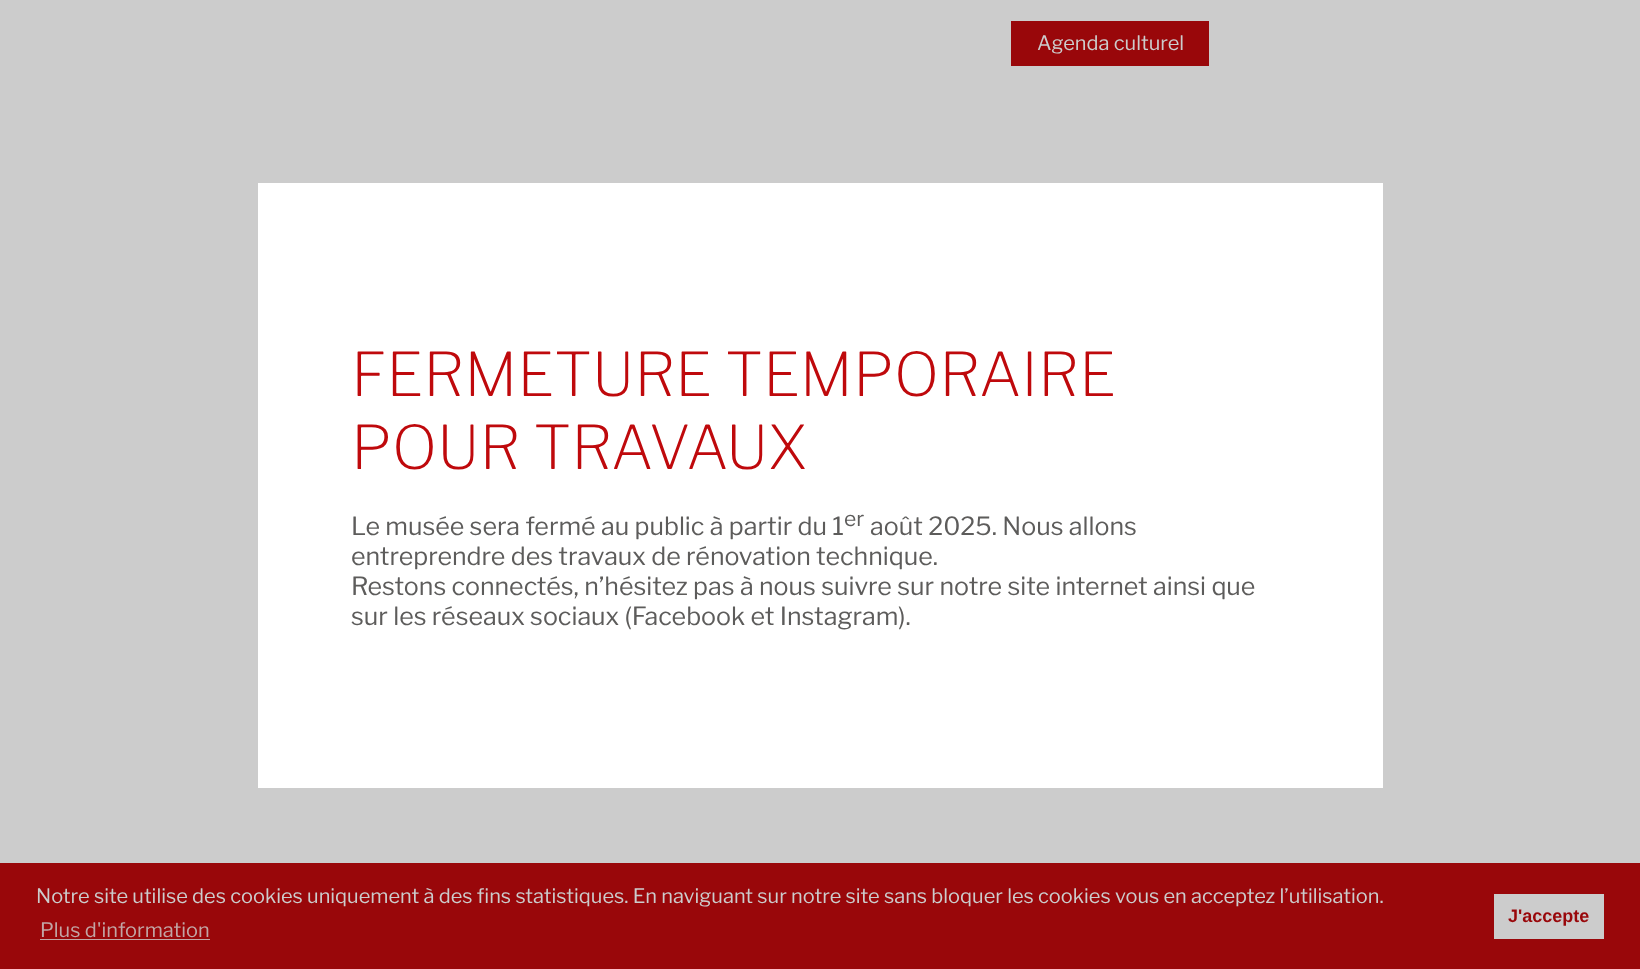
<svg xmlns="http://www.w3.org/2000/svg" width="1640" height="969">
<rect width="100%" height="100%" fill="#ccc"/>
<rect x="1011" y="21" width="198" height="45" fill="#99070a"/>
<text x="1037" y="50" style="font-family:Libre Franklin;font-size:20px;fill:#ccc">Agenda culturel</text>
<rect x="258" y="183" width="1125" height="605" fill="#fff"/>
<text x="351" y="396" style="font-family:Libre Franklin;font-size:60px;font-weight:200;fill:#bf090c">FERMETURE TEMPORAIRE</text>
<text x="351" y="469" style="font-family:Libre Franklin;font-size:60px;font-weight:200;fill:#bf090c">POUR TRAVAUX</text>
<text x="351" y="535" style="font-family:Libre Franklin;font-size:25px;fill:#5d5c5b">Le musée sera fermé au public à partir du 1</text>
<text x="844" y="526" style="font-family:Libre Franklin;font-size:21px;fill:#5d5c5b">er</text>
<text x="870" y="535" style="font-family:Libre Franklin;font-size:25px;fill:#5d5c5b">août 2025. Nous allons</text>
<text x="351" y="565" style="font-family:Libre Franklin;font-size:25px;fill:#5d5c5b">entreprendre des travaux de rénovation technique.</text>
<text x="351" y="595" style="font-family:Libre Franklin;font-size:25px;fill:#5d5c5b">Restons connectés, n’hésitez pas à nous suivre sur notre site internet ainsi que</text>
<text x="351" y="625" style="font-family:Libre Franklin;font-size:25px;fill:#5d5c5b">sur les réseaux sociaux (Facebook et Instagram).</text>
<rect y="863" width="1640" height="106" fill="#99070a"/>
<text x="36" y="903" style="font-family:Libre Franklin;font-size:20px;fill:#ccc">Notre site utilise des cookies uniquement à des fins statistiques. En naviguant sur notre site sans bloquer les cookies vous en acceptez l’utilisation.</text>
<text x="40" y="937" style="font-family:Libre Franklin;font-size:20px;fill:#c2a5a5">Plus d'information</text>
<rect x="40" y="939" width="170" height="1" fill="#c2a5a5"/>
<rect x="1494" y="894" width="110" height="45" fill="#ccc"/>
<text x="1508" y="922" style="font-family:Liberation Sans;font-size:18px;font-weight:bold;fill:#99070a">J'accepte</text>
</svg>
